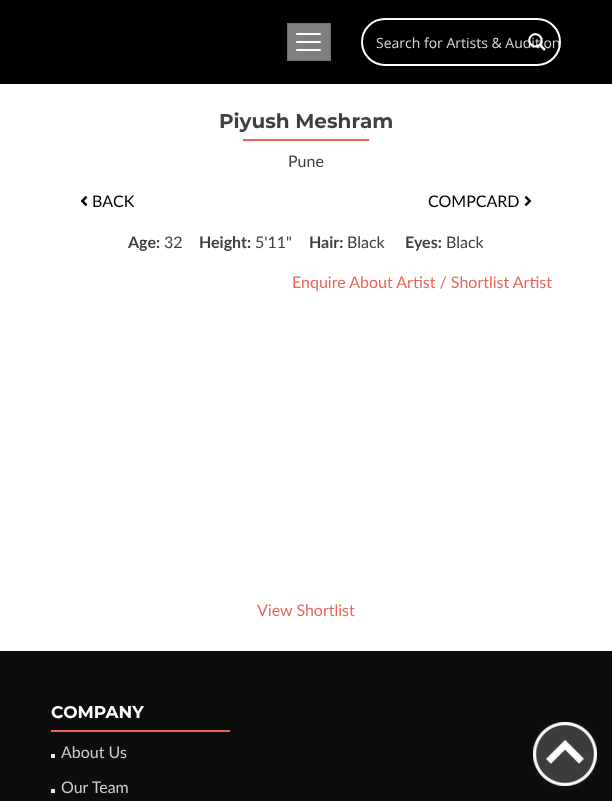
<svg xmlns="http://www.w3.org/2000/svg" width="612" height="801">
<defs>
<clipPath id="clip1"><rect x="363" y="20" width="196" height="44" rx="22"/></clipPath>
</defs>
<rect width="100%" height="100%" fill="#fff"/>
<rect width="612" height="84" fill="#000"/>
<rect x="287.5" y="23.5" width="43" height="37" fill="#7f7f7f" stroke="#727272"/>
<rect x="296" y="41" width="25" height="2" rx="1" fill="#fff"/>
<rect x="296" y="33" width="25" height="2" rx="1" fill="#fff"/>
<rect x="296" y="49" width="25" height="2" rx="1" fill="#fff"/>
<rect x="362" y="19" width="198" height="46" rx="23" fill="none" stroke="#fff" stroke-width="2"/>
<g clip-path="url(#clip1)">
<text x="376" y="48" style="font-family:Open Sans;font-size:14px;fill:#d9d9d9">Search for Artists &amp; Audition</text>
</g>
<image x="528" y="33" width="18" height="18" href="media/1.png"/>
<text x="219" y="128" style="font-family:Montserrat;font-size:20px;font-weight:bold;fill:#404040">Piyush Meshram</text>
<rect x="243" y="139" width="126" height="2" fill="#e96656"/>
<text x="288" y="167" style="font-family:Lato;font-size:16px;fill:#404040">Pune</text>
<image x="80" y="196" width="8" height="10" href="media/2.png"/>
<text x="92" y="207" style="font-family:Lato;font-size:16px;fill:#000">BACK</text>
<text x="428" y="207" style="font-family:Lato;font-size:16px;fill:#000">COMPCARD</text>
<image x="524" y="196" width="8" height="10" href="media/3.png"/>
<text x="128" y="248" style="font-family:Lato;font-size:16px;font-weight:bold;fill:#404040">Age:</text>
<text x="164" y="248" style="font-family:Lato;font-size:16px;fill:#404040">32</text>
<text x="199" y="248" style="font-family:Lato;font-size:16px;font-weight:bold;fill:#404040">Height:</text>
<text x="255" y="248" style="font-family:Lato;font-size:16px;fill:#404040">5'11"</text>
<text x="309" y="248" style="font-family:Lato;font-size:16px;font-weight:bold;fill:#404040">Hair:</text>
<text x="347" y="248" style="font-family:Lato;font-size:16px;fill:#404040">Black</text>
<text x="405" y="248" style="font-family:Lato;font-size:16px;font-weight:bold;fill:#404040">Eyes:</text>
<text x="446" y="248" style="font-family:Lato;font-size:16px;fill:#404040">Black</text>
<text x="292" y="288" style="font-family:Lato;font-size:16px;fill:#e96656">Enquire About Artist / Shortlist Artist</text>
<text x="257" y="616" style="font-family:Lato;font-size:16px;fill:#e96656">View Shortlist</text>
<rect y="651" width="612" height="150" fill="#0d0d0d"/>
<text x="51" y="718" style="font-family:Montserrat;font-size:17px;font-weight:bold;fill:#fff">COMPANY</text>
<rect x="51" y="730" width="179" height="2" fill="#e96656"/>
<rect x="51" y="754" width="4" height="4" fill="#e9e9e9"/>
<text x="61" y="758" style="font-family:Lato;font-size:16px;fill:#ccc">About Us</text>
<rect x="51" y="789" width="4" height="4" fill="#e9e9e9"/>
<text x="61" y="793" style="font-family:Lato;font-size:16px;fill:#ccc">Our Team</text>
<image x="533" y="722" width="64" height="64" href="media/4.png"/>
</svg>
